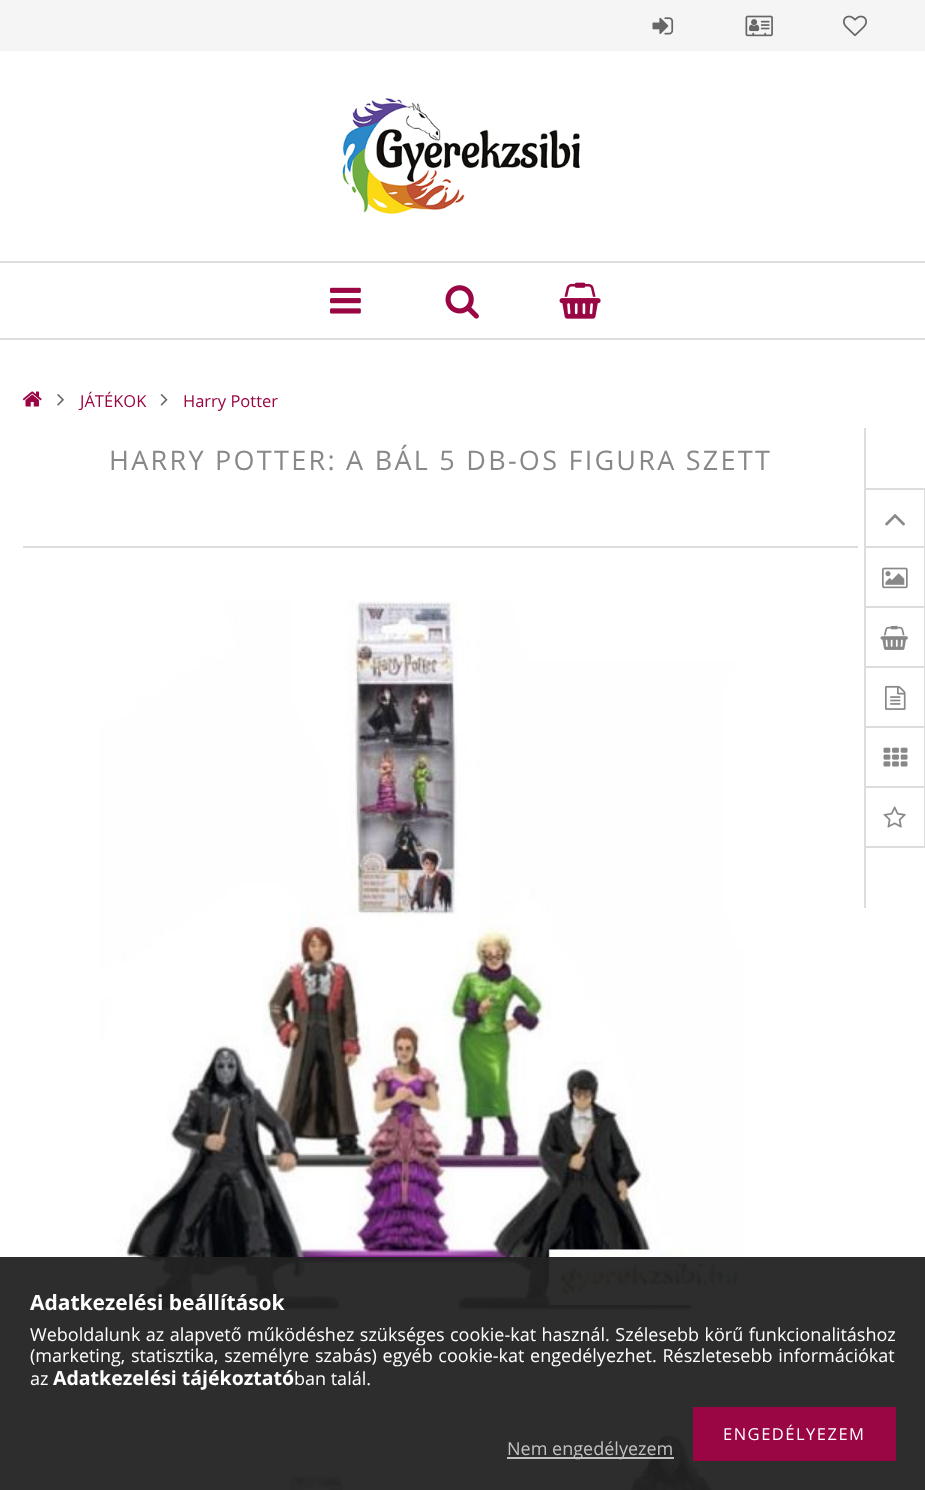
<svg xmlns="http://www.w3.org/2000/svg" width="925" height="1490">
<rect width="100%" height="100%" fill="#fff"/>
<rect width="925" height="51" fill="#f5f5f5"/>
<image x="652" y="17" width="22" height="18" href="media/1.png"/>
<image x="745" y="15" width="28" height="22" href="media/2.png"/>
<image x="843" y="15" width="24" height="22" href="media/3.png"/>
<image x="342" y="98" width="238" height="116" href="media/4.png"/>
<rect y="261" width="925" height="2" fill="#ddd"/>
<rect y="338" width="925" height="2" fill="#ddd"/>
<image x="330" y="287" width="31" height="27" href="media/5.png"/>
<image x="445" y="285" width="34" height="34" href="media/6.png"/>
<image x="559" y="282" width="42" height="37" href="media/7.png"/>
<image x="22" y="391" width="20" height="16" href="media/8.png"/>
<image x="57" y="394" width="7" height="12" href="media/9.png"/>
<text x="80" y="407" style="font-family:Open Sans;font-size:16.5px;fill:#990643">JÁTÉKOK</text>
<image x="160" y="394" width="8" height="12" href="media/10.png"/>
<text x="183" y="407" style="font-family:Open Sans;font-size:16.5px;fill:#990643">Harry Potter</text>
<rect x="23" y="546" width="835" height="2" fill="#ddd"/>
<text x="109" y="470" style="font-family:Open Sans;font-size:27px;letter-spacing:2.25px;fill:#888">HARRY POTTER: A BÁL 5 DB-OS FIGURA SZETT</text>
<image x="99" y="601" width="646" height="709" href="media/11.png"/>
<image x="83" y="1474" width="261" height="16" href="media/12.png"/>
<image x="627" y="1430" width="94" height="60" href="media/13.png"/>
<rect x="864" y="428" width="2" height="480" fill="#ddd"/>
<rect x="866" y="488" width="59" height="2" fill="#ddd"/>
<rect x="924" y="488" width="1" height="360" fill="#ddd"/>
<rect x="866" y="546" width="59" height="2" fill="#ddd"/>
<image x="885" y="514" width="20" height="12" href="media/14.png"/>
<rect x="866" y="606" width="59" height="2" fill="#ddd"/>
<image x="882" y="567" width="26" height="22" href="media/15.png"/>
<rect x="866" y="666" width="59" height="2" fill="#ddd"/>
<image x="880" y="625" width="28" height="25" href="media/16.png"/>
<rect x="866" y="726" width="59" height="2" fill="#ddd"/>
<image x="885" y="685" width="21" height="25" href="media/17.png"/>
<rect x="866" y="786" width="59" height="2" fill="#ddd"/>
<image x="883" y="747" width="25" height="20" href="media/18.png"/>
<rect x="866" y="846" width="59" height="2" fill="#ddd"/>
<image x="883" y="806" width="23" height="22" href="media/19.png"/>
<rect y="1257" width="925" height="233" fill="#222222f2"/>
<text x="30" y="1310" style="font-family:Open Sans;font-size:21px;font-weight:bold;fill:#fff">Adatkezelési beállítások</text>
<text x="30" y="1341" word-spacing="0.75" style="font-family:Open Sans;font-size:18px;fill:#fff">Weboldalunk az alapvető működéshez szükséges cookie-kat használ. Szélesebb körű funkcionalitáshoz</text>
<text x="30" y="1362" word-spacing="1" style="font-family:Open Sans;font-size:18px;fill:#fff">(marketing, statisztika, személyre szabás) egyéb cookie-kat engedélyezhet. Részletesebb információkat</text>
<text x="30" y="1385" style="font-family:Open Sans;font-size:18px;fill:#fff">az</text>
<text x="53" y="1385" style="font-family:Open Sans;font-size:19.5px;font-weight:bold;fill:#fff">Adatkezelési tájékoztató</text>
<text x="294" y="1385" style="font-family:Open Sans;font-size:18px;fill:#fff">ban talál.</text>
<rect x="693" y="1407" width="203" height="54" fill="#990643"/>
<text x="723" y="1440" style="font-family:Open Sans;font-size:16.5px;letter-spacing:1.5px;fill:#fff">ENGEDÉLYEZEM</text>
<rect x="507" y="1457" width="167" height="2" fill="#ffffffb3"/>
<text x="507" y="1455" style="font-family:Open Sans;font-size:18px;fill:#c1c1c1">Nem engedélyezem</text>
</svg>
